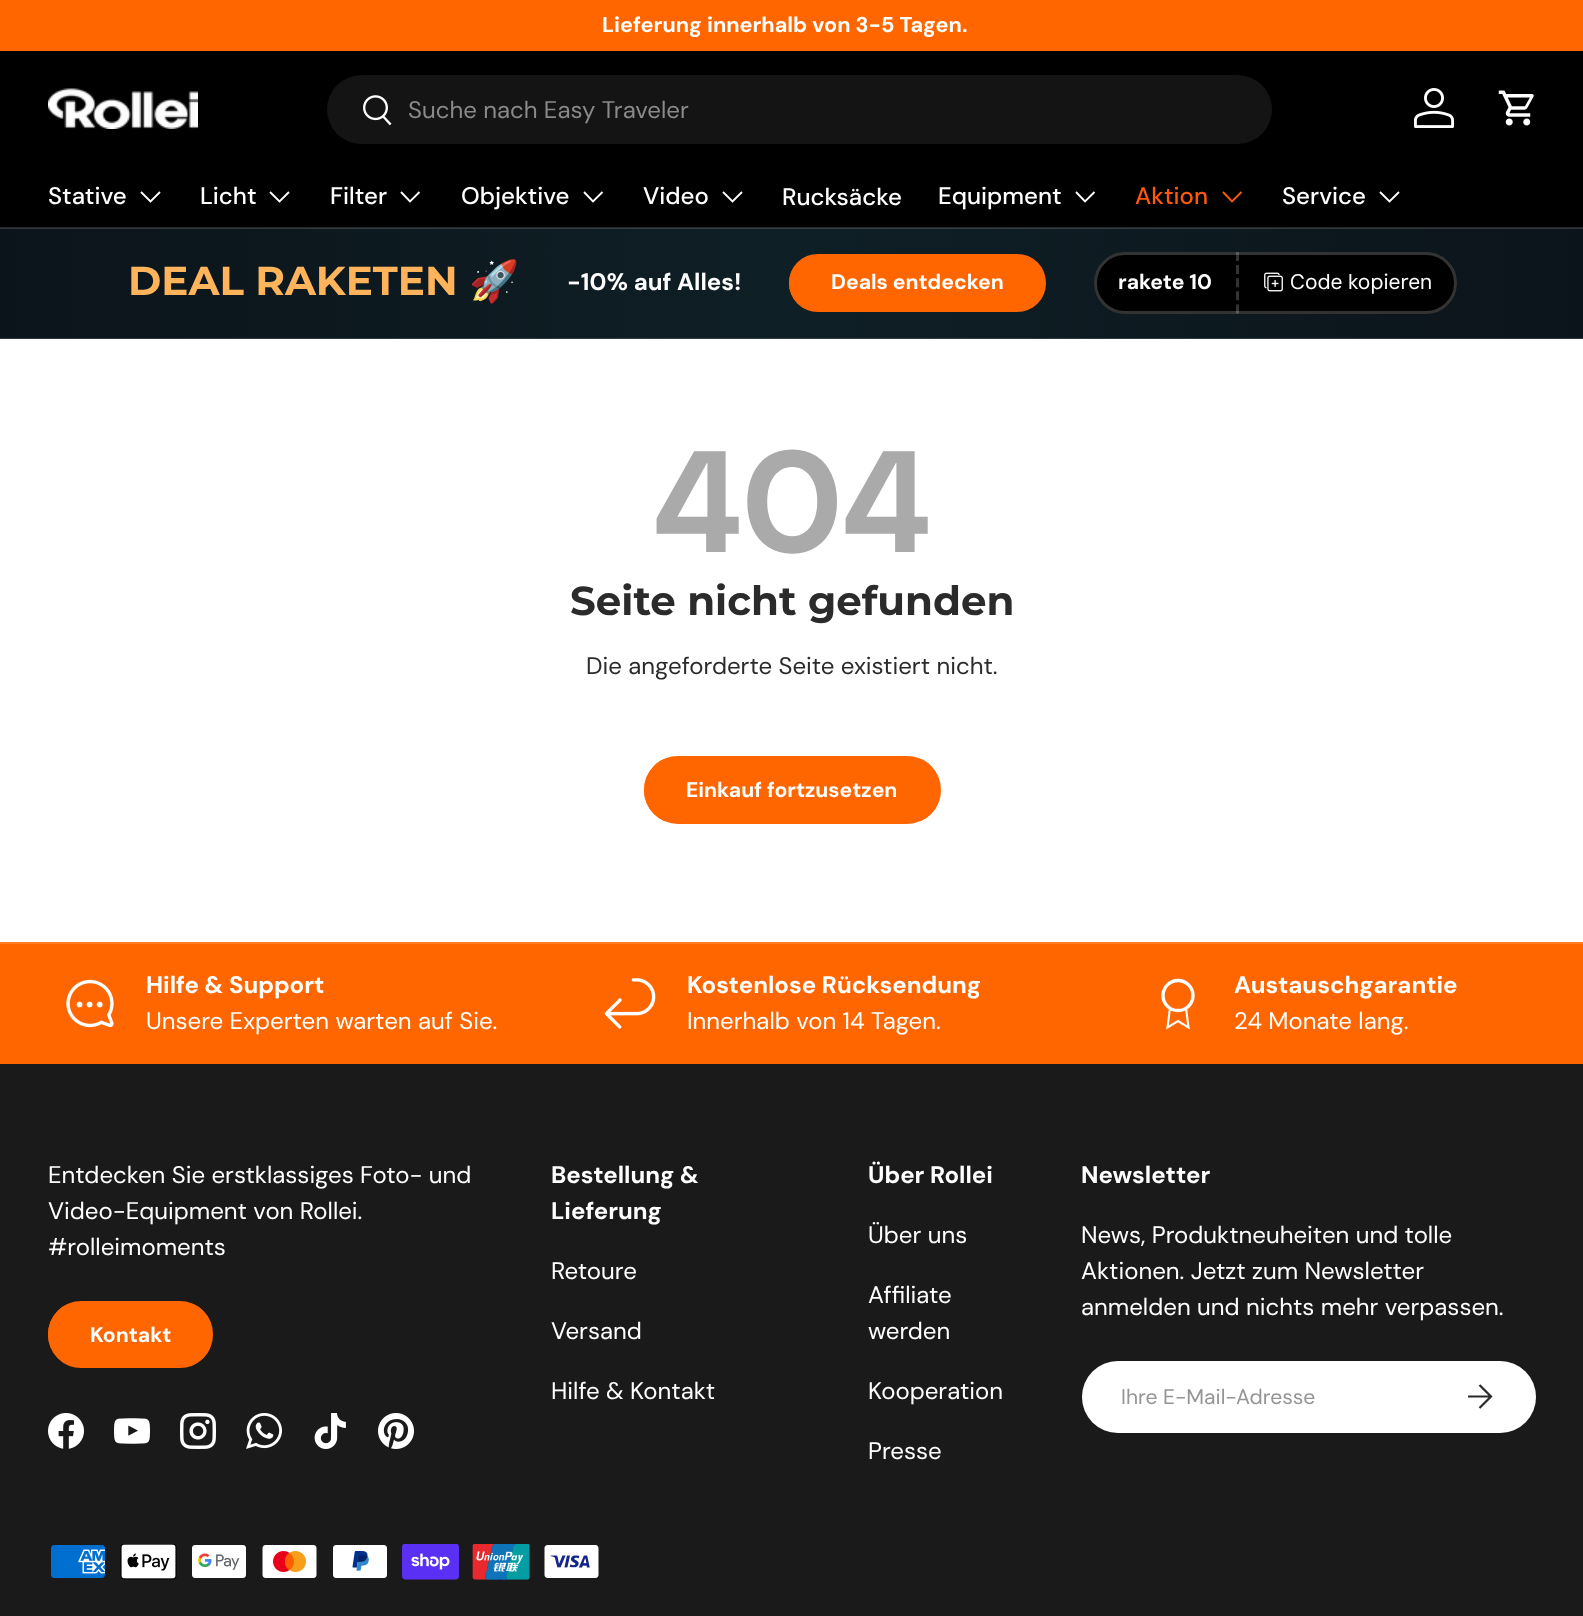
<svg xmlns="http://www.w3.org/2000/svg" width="1583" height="1616">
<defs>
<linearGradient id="g1" gradientUnits="userSpaceOnUse" x1="0" y1="283" x2="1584" y2="283"><stop offset="0" stop-color="#0b141a"/><stop offset="0.5" stop-color="#0f1f26"/><stop offset="1" stop-color="#0b141a"/></linearGradient>
<linearGradient id="g2" gradientUnits="userSpaceOnUse" x1="0" y1="283" x2="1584" y2="283"><stop offset="0" stop-color="#30373c"/><stop offset="0.5" stop-color="#334147"/><stop offset="1" stop-color="#30373c"/></linearGradient>
<clipPath id="clip1"><rect x="789" y="254" width="257" height="58" rx="29"/></clipPath>
<linearGradient id="g3" gradientUnits="userSpaceOnUse" x1="307" y1="193" x2="1027" y2="372"><stop offset="0.6" stop-color="#ff8635"/><stop offset="0.6" stop-color="#f60"/><stop offset="1" stop-color="#f60"/></linearGradient>
<clipPath id="clip2"><rect x="644" y="756" width="297" height="68" rx="34"/></clipPath>
<linearGradient id="g4" gradientUnits="userSpaceOnUse" x1="83" y1="685" x2="919" y2="894"><stop offset="0.6" stop-color="#ff8635"/><stop offset="0.6" stop-color="#f60"/><stop offset="1" stop-color="#f60"/></linearGradient>
<clipPath id="clip3"><rect x="48" y="1301" width="165" height="67" rx="33.5"/></clipPath>
<linearGradient id="g5" gradientUnits="userSpaceOnUse" x1="-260" y1="1276" x2="203" y2="1392"><stop offset="0.6" stop-color="#ff8635"/><stop offset="0.6" stop-color="#f60"/><stop offset="1" stop-color="#f60"/></linearGradient>
</defs>
<rect width="100%" height="100%" fill="#fff"/>
<rect width="1583" height="51" fill="#f60"/>
<text x="602" y="32" style="font-family:'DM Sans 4';font-size:21.6px;font-weight:bold;fill:#fff">Lieferung innerhalb von 3-5 Tagen.</text>
<rect y="51" width="1583" height="176" fill="#000"/>
<rect y="227" width="1583" height="1" fill="#262626"/>
<image x="48" y="88" width="150" height="41" href="media/1.png"/>
<rect x="327" y="75" width="945" height="69" rx="34.5" fill="#141414"/>
<image x="363" y="95" width="29" height="31" href="media/2.png"/>
<text x="408" y="118" style="font-family:DM Sans;font-size:24px;fill:#8a8a8a">Suche nach Easy Traveler</text>
<image x="1414" y="88" width="40" height="40" href="media/3.png"/>
<image x="1498" y="90" width="36" height="36" href="media/4.png"/>
<text x="48" y="204" style="font-family:DM Sans;font-size:24px;font-weight:500;fill:#fff">Stative</text>
<path d="M160 192l-9.5 9.5l-9.5-9.5" fill="none" stroke="#fff" stroke-width="1.9"/>
<text x="200" y="204" style="font-family:DM Sans;font-size:24px;font-weight:500;fill:#fff">Licht</text>
<path d="M289 192l-9.5 9.5l-9.5-9.5" fill="none" stroke="#fff" stroke-width="1.9"/>
<text x="330" y="204" style="font-family:DM Sans;font-size:24px;font-weight:500;fill:#fff">Filter</text>
<path d="M419.5 192l-9.5 9.5l-9-9.5" fill="none" stroke="#fff" stroke-width="1.9"/>
<text x="461" y="204" style="font-family:DM Sans;font-size:24px;font-weight:500;fill:#fff">Objektive</text>
<path d="M602.5 192l-9.5 9.5l-9-9.5" fill="none" stroke="#fff" stroke-width="1.9"/>
<text x="643" y="204" style="font-family:DM Sans;font-size:24px;font-weight:500;fill:#fff">Video</text>
<path d="M742 192l-9.5 9.5l-9.5-9.5" fill="none" stroke="#fff" stroke-width="1.9"/>
<text x="782" y="205" style="font-family:DM Sans;font-size:24px;font-weight:500;fill:#fff">Rucksäcke</text>
<text x="938" y="204" style="font-family:DM Sans;font-size:24px;font-weight:500;fill:#fff">Equipment</text>
<path d="M1094.5 192l-9.5 9.5l-9-9.5" fill="none" stroke="#fff" stroke-width="1.9"/>
<text x="1135" y="204" style="font-family:DM Sans;font-size:24px;font-weight:500;fill:#ff580d">Aktion</text>
<path d="M1241.5 192l-9.5 9.5l-9-9.5" fill="none" stroke="#ff580d" stroke-width="1.9"/>
<text x="1282" y="204" style="font-family:DM Sans;font-size:24px;font-weight:500;fill:#fff">Service</text>
<path d="M1399 192l-9.5 9.5l-9.5-9.5" fill="none" stroke="#fff" stroke-width="1.9"/>
<rect y="229" width="1583" height="109" fill="url(#g1)"/>
<rect y="228" width="1583" height="1" fill="url(#g2)"/>
<rect y="338" width="1583" height="1" fill="url(#g2)"/>
<text x="128" y="295" style="font-family:Montserrat;font-size:40.4px;font-weight:bold;fill:#ffb45c">DEAL RAKETEN</text>
<text x="469" y="295" style="font-family:Noto Color Emoji;font-size:40.4px;font-weight:bold;fill:#ffb45c">🚀</text>
<text x="567" y="290" style="font-family:'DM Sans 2';font-size:24px;font-weight:bold;fill:#fff">-10% auf Alles!</text>
<g clip-path="url(#clip1)">
<rect x="789" y="257" width="254" height="52" fill="url(#g3)"/>
</g>
<rect x="790.5" y="255.5" width="254" height="55" rx="27.5" fill="none" stroke="#f60" stroke-width="3"/>
<text x="831" y="289" style="font-family:'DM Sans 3';font-size:21.1px;font-weight:bold;fill:#fff">Deals entdecken</text>
<rect x="1094" y="252" width="363" height="62" rx="31" fill="#000"/>
<rect x="1095.5" y="253.5" width="360" height="59" rx="29.5" fill="none" stroke="#ffffff33" stroke-width="3"/>
<text x="1118" y="289" style="font-family:'DM Sans 3';font-size:21.1px;font-weight:bold;fill:#fff">rakete 10</text>
<path d="M1237.5 252v61.5" fill="none" stroke="#ffffff33" stroke-width="3" stroke-dasharray="9 4.12"/>
<image x="1264" y="272" width="19" height="20" href="media/5.png"/>
<text x="1290" y="289" style="font-family:'DM Sans 2';font-size:21px;fill:#fff">Code kopieren</text>
<text x="653" y="552" style="font-family:DM Sans;font-size:144px;font-weight:bold;fill:#aaa">404</text>
<text x="570" y="615" style="font-family:Montserrat;font-size:40.4px;font-weight:bold;fill:#2a2b2a">Seite nicht gefunden</text>
<text x="586" y="674" style="font-family:DM Sans;font-size:24px;fill:#2a2b2a">Die angeforderte Seite existiert nicht.</text>
<g clip-path="url(#clip2)">
<rect x="644" y="759" width="294" height="62" fill="url(#g4)"/>
</g>
<rect x="645.5" y="757.5" width="294" height="65" rx="32.5" fill="none" stroke="#f60" stroke-width="3"/>
<text x="686" y="797" style="font-family:'DM Sans 3';font-size:21.1px;font-weight:bold;fill:#fff">Einkauf fortzusetzen</text>
<rect y="944" width="1583" height="120" fill="#f60"/>
<rect y="942" width="1583" height="2" fill="#ff7d26"/>
<image x="66" y="979" width="48" height="49" href="media/6.png"/>
<text x="146" y="993" style="font-family:'DM Sans 2';font-size:24px;font-weight:bold;fill:#fff">Hilfe &amp; Support</text>
<text x="146" y="1029" style="font-family:DM Sans;font-size:24px;fill:#fff">Unsere Experten warten auf Sie.</text>
<image x="604" y="978" width="52" height="51" href="media/7.png"/>
<text x="687" y="993" style="font-family:'DM Sans 2';font-size:24px;font-weight:bold;fill:#fff">Kostenlose Rücksendung</text>
<text x="687" y="1029" style="font-family:DM Sans;font-size:24px;fill:#fff">Innerhalb von 14 Tagen.</text>
<circle cx="1178" cy="995.5" r="15" fill="none" stroke="#fff" stroke-width="3.4"/>
<path d="M1170 1008l-2.5 19.5l10.5-6.5l10.5 6.5l-2.5-19.5" fill="none" stroke="#fff" stroke-width="2.1"/>
<text x="1234" y="993" style="font-family:'DM Sans 2';font-size:24px;font-weight:bold;fill:#fff">Austauschgarantie</text>
<text x="1234" y="1029" style="font-family:DM Sans;font-size:24px;fill:#fff">24 Monate lang.</text>
<rect y="1064" width="1583" height="552" fill="#1a1a1a"/>
<text x="48" y="1183" style="font-family:DM Sans;font-size:24px;fill:#fff">Entdecken Sie erstklassiges Foto- und</text>
<text x="48" y="1219" style="font-family:DM Sans;font-size:24px;fill:#fff">Video-Equipment von Rollei.</text>
<text x="48" y="1255" style="font-family:DM Sans;font-size:24px;fill:#fff">#rolleimoments</text>
<g clip-path="url(#clip3)">
<rect x="48" y="1304" width="162" height="61" fill="url(#g5)"/>
</g>
<rect x="49.5" y="1302.5" width="162" height="64" rx="32" fill="none" stroke="#f60" stroke-width="3"/>
<text x="90" y="1342" style="font-family:'DM Sans 3';font-size:21.1px;font-weight:bold;fill:#fff">Kontakt</text>
<image x="48" y="1413" width="36" height="36" href="media/8.png"/>
<image x="114" y="1418" width="36" height="26" href="media/9.png"/>
<image x="180" y="1413" width="36" height="36" href="media/10.png"/>
<image x="246" y="1413" width="36" height="36" href="media/11.png"/>
<image x="314" y="1413" width="32" height="36" href="media/12.png"/>
<image x="378" y="1413" width="36" height="36" href="media/13.png"/>
<text x="551" y="1183" style="font-family:'DM Sans 2';font-size:24px;font-weight:bold;fill:#fff">Bestellung &amp;</text>
<text x="551" y="1219" style="font-family:'DM Sans 2';font-size:24px;font-weight:bold;fill:#fff">Lieferung</text>
<text x="551" y="1279" style="font-family:DM Sans;font-size:24px;fill:#fff">Retoure</text>
<text x="551" y="1339" style="font-family:DM Sans;font-size:24px;fill:#fff">Versand</text>
<text x="551" y="1399" style="font-family:DM Sans;font-size:24px;fill:#fff">Hilfe &amp; Kontakt</text>
<text x="868" y="1183" style="font-family:'DM Sans 2';font-size:24px;font-weight:bold;fill:#fff">Über Rollei</text>
<text x="868" y="1243" style="font-family:DM Sans;font-size:24px;fill:#fff">Über uns</text>
<text x="868" y="1303" style="font-family:DM Sans;font-size:24px;fill:#fff">Affiliate</text>
<text x="868" y="1339" style="font-family:DM Sans;font-size:24px;fill:#fff">werden</text>
<text x="868" y="1399" style="font-family:DM Sans;font-size:24px;fill:#fff">Kooperation</text>
<text x="868" y="1459" style="font-family:DM Sans;font-size:24px;fill:#fff">Presse</text>
<text x="1081" y="1183" style="font-family:'DM Sans 2';font-size:24px;font-weight:bold;fill:#fff">Newsletter</text>
<text x="1081" y="1243" style="font-family:DM Sans;font-size:24px;fill:#fff">News, Produktneuheiten und tolle</text>
<text x="1081" y="1279" style="font-family:DM Sans;font-size:24px;fill:#fff">Aktionen. Jetzt zum Newsletter</text>
<text x="1081" y="1315" style="font-family:DM Sans;font-size:24px;fill:#fff">anmelden und nichts mehr verpassen.</text>
<rect x="1082" y="1361" width="454" height="72" rx="36" fill="#fff"/>
<rect x="1083.5" y="1362.5" width="451" height="69" rx="34.5" fill="none" stroke="#ffffff33" stroke-width="3"/>
<text x="1121" y="1404" style="font-family:'DM Sans 3';font-size:21.1px;fill:#959595">Ihre E-Mail-Adresse</text>
<path d="M1468 1396.5h22m-10.5-11.5l11.5 11.5l-11.5 11.5" fill="none" stroke="#2a2b2a" stroke-width="2.2"/>
<image x="51" y="1545" width="54" height="33" href="media/14.png"/>
<image x="120" y="1544" width="57" height="36" href="media/15.png"/>
<image x="192" y="1545" width="54" height="33" href="media/16.png"/>
<image x="262" y="1545" width="55" height="33" href="media/17.png"/>
<image x="333" y="1545" width="54" height="33" href="media/18.png"/>
<image x="402" y="1544" width="57" height="36" href="media/19.png"/>
<image x="472" y="1544" width="58" height="36" href="media/20.png"/>
<image x="544" y="1545" width="55" height="33" href="media/21.png"/>
</svg>
